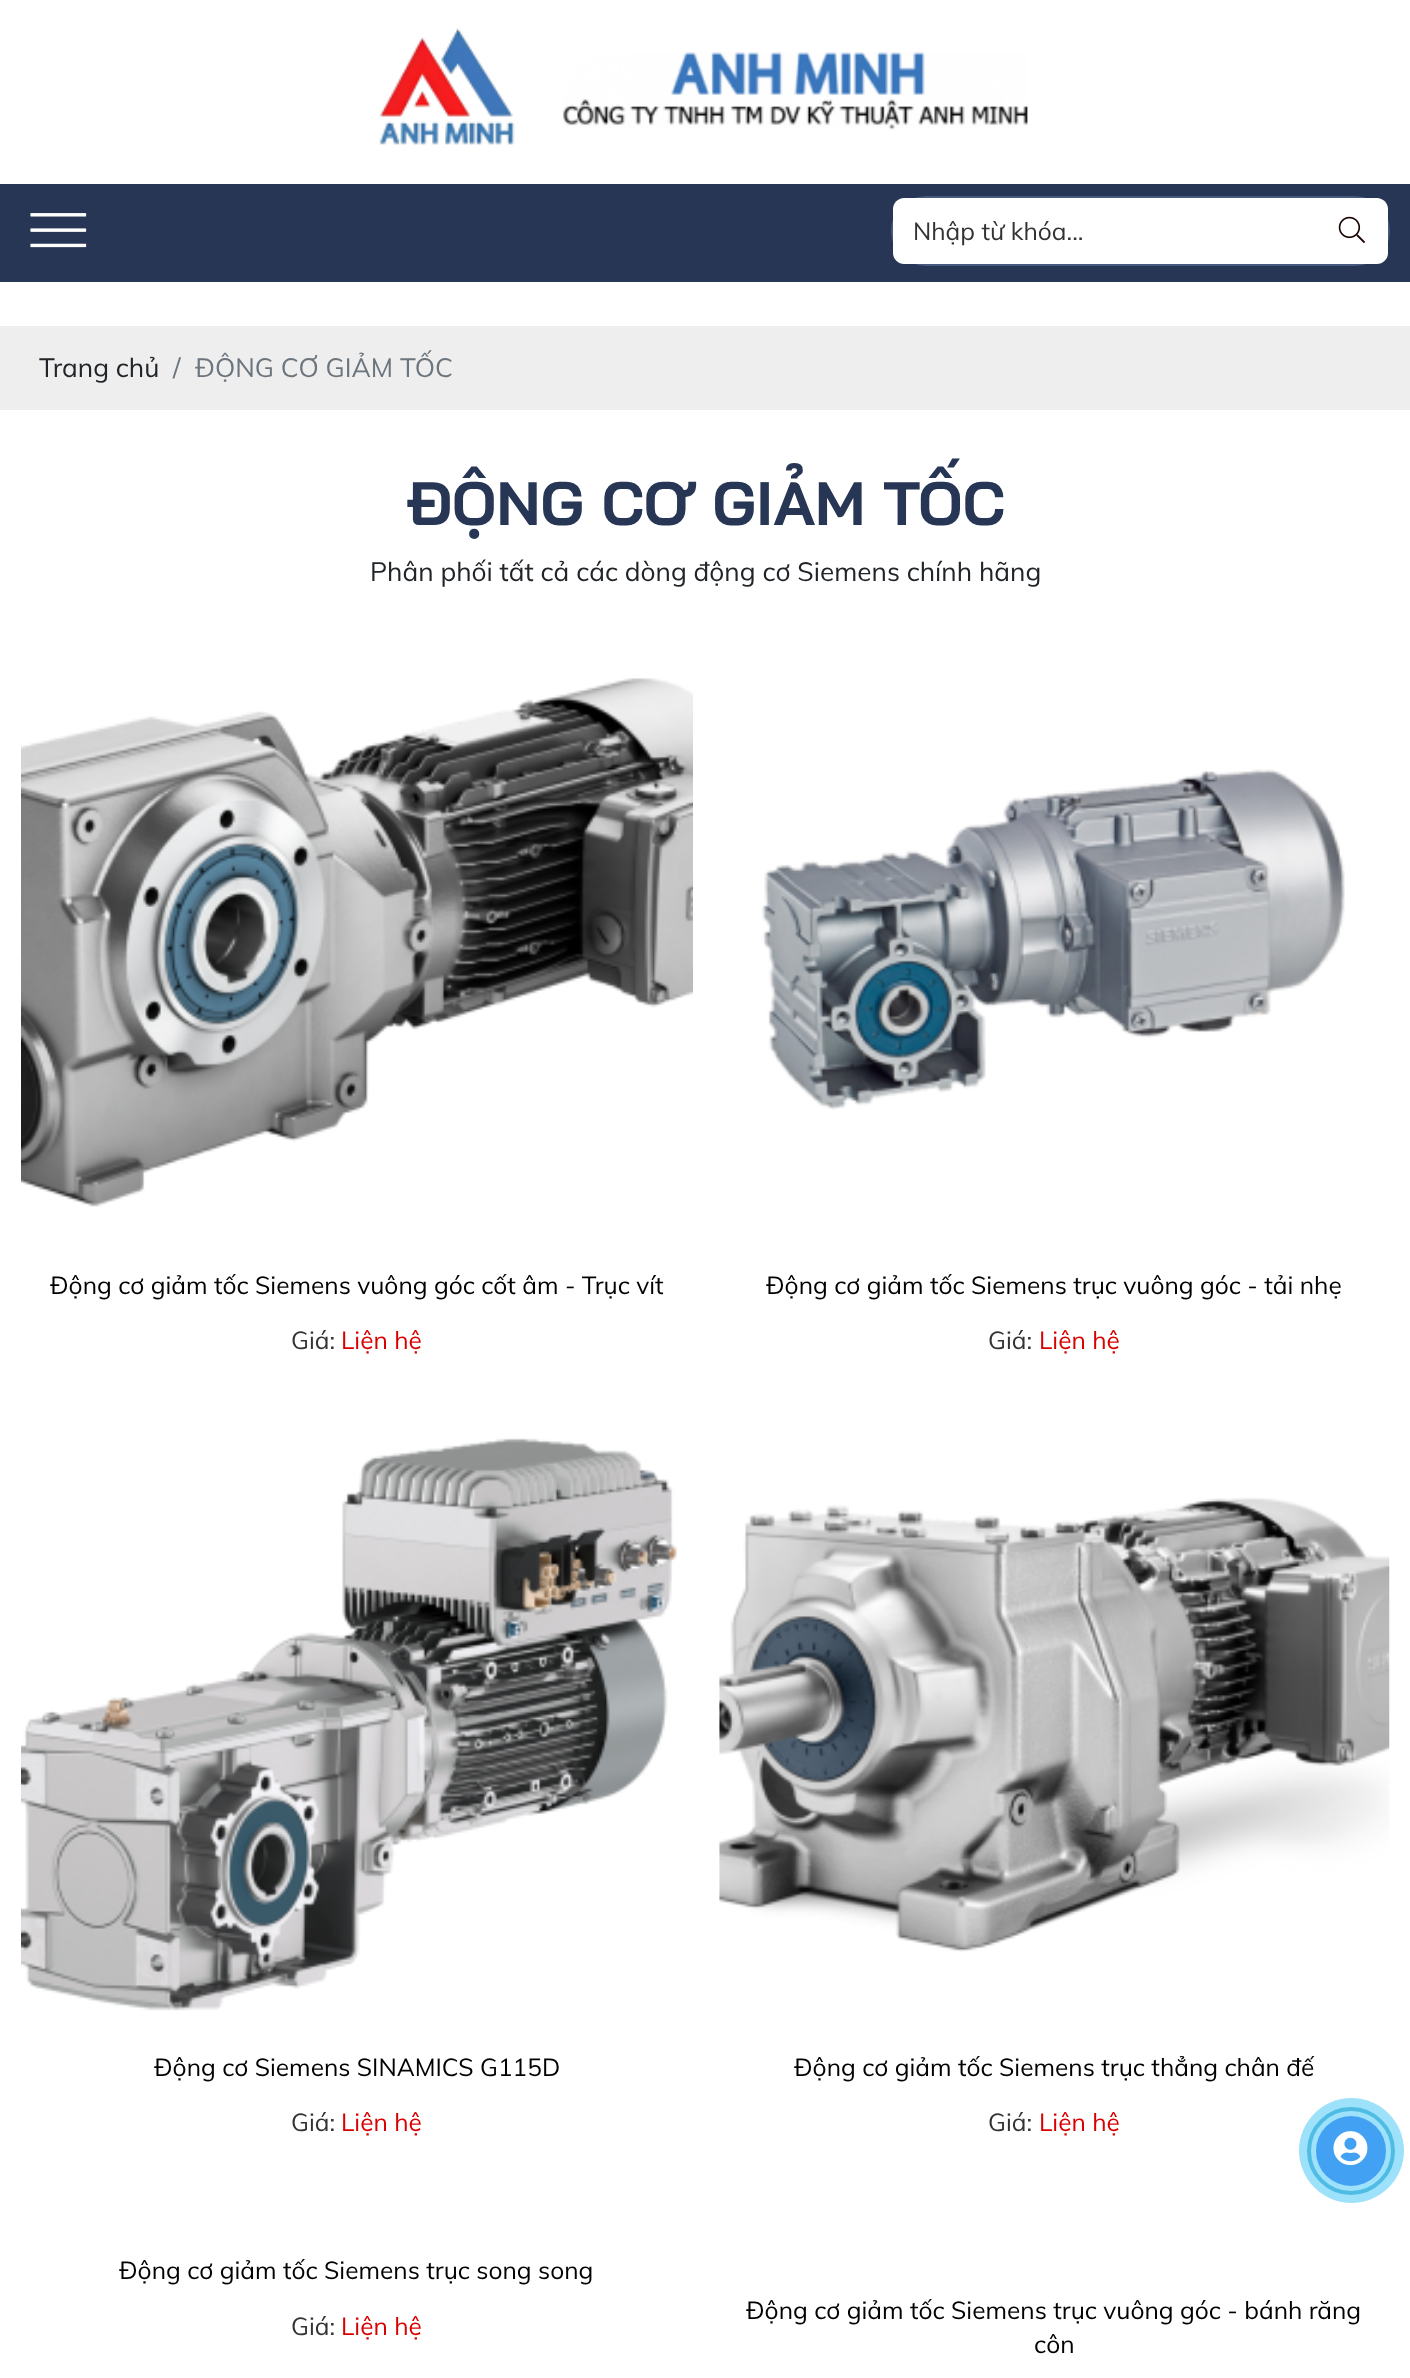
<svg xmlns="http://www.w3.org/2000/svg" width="1410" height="2378">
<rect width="100%" height="100%" fill="#fff"/>
<image x="379" y="28" width="136" height="117" href="media/1.png"/>
<image x="563" y="52" width="465" height="78" href="media/2.png"/>
<rect y="184" width="1410" height="98" fill="#273655"/>
<image x="30" y="213" width="57" height="35" href="media/3.png"/>
<rect x="892" y="197" width="497" height="68" rx="34" fill="none" stroke="#47597e" stroke-width="2"/>
<path d="M904 198h414v66h-414c-6 0-11-5-11-11v-44c0-6 5-11 11-11z" fill="#fff"/>
<text x="913" y="240" style="font-family:Muli;font-size:24.5px;fill:#333">Nhập từ khóa...</text>
<path d="M1318 198h59c6 0 11 5 11 11v44c0 6-5 11-11 11h-59z" fill="#fff"/>
<image x="1338" y="216" width="27" height="27" href="media/4.png"/>
<rect y="326" width="1410" height="84" fill="#eee"/>
<text x="39" y="377" style="font-family:Muli;font-size:26.25px;fill:#212529">Trang chủ</text>
<text x="173" y="377" style="font-family:Muli;font-size:26.25px;fill:#6c757d">/</text>
<text x="195" y="377" style="font-family:Muli;font-size:26.25px;fill:#6c757d">ĐỘNG CƠ GIẢM TỐC</text>
<text x="406" y="525" style="font-family:Bai Jamjuree;font-size:61.25px;font-weight:bold;fill:#273655">ĐỘNG CƠ GIẢM TỐC</text>
<text x="370" y="581" style="font-family:Muli;font-size:26.25px;fill:#212529">Phân phối tất cả các dòng động cơ Siemens chính hãng</text>
<image x="21" y="678" width="672" height="529" href="media/5.png"/>
<text x="50" y="1294" style="font-family:Muli;font-size:24.5px;fill:#000">Động cơ giảm tốc Siemens vuông góc cốt âm - Trục vít</text>
<text x="291" y="1349" style="font-family:Muli;font-size:24.5px;fill:#333">Giá:</text>
<text x="341" y="1349" style="font-family:Muli;font-size:24.5px;fill:#d90000">Liện hệ</text>
<image x="761" y="769" width="584" height="341" href="media/6.png"/>
<text x="766" y="1294" style="font-family:Muli;font-size:24.5px;fill:#000">Động cơ giảm tốc Siemens trục vuông góc - tải nhẹ</text>
<text x="988" y="1349" style="font-family:Muli;font-size:24.5px;fill:#333">Giá:</text>
<text x="1039" y="1349" style="font-family:Muli;font-size:24.5px;fill:#d90000">Liện hệ</text>
<image x="21" y="1438" width="656" height="573" href="media/7.png"/>
<text x="154" y="2076" style="font-family:Muli;font-size:24.5px;fill:#000">Động cơ Siemens SINAMICS G115D</text>
<text x="291" y="2131" style="font-family:Muli;font-size:24.5px;fill:#333">Giá:</text>
<text x="341" y="2131" style="font-family:Muli;font-size:24.5px;fill:#d90000">Liện hệ</text>
<image x="719" y="1497" width="671" height="455" href="media/8.png"/>
<text x="794" y="2076" style="font-family:Muli;font-size:24.5px;fill:#000">Động cơ giảm tốc Siemens trục thẳng chân đế</text>
<text x="988" y="2131" style="font-family:Muli;font-size:24.5px;fill:#333">Giá:</text>
<text x="1039" y="2131" style="font-family:Muli;font-size:24.5px;fill:#d90000">Liện hệ</text>
<text x="119" y="2279" style="font-family:Muli;font-size:24.5px;fill:#000">Động cơ giảm tốc Siemens trục song song</text>
<text x="291" y="2335" style="font-family:Muli;font-size:24.5px;fill:#333">Giá:</text>
<text x="341" y="2335" style="font-family:Muli;font-size:24.5px;fill:#d90000">Liện hệ</text>
<text x="746" y="2319" style="font-family:Muli;font-size:24.5px;fill:#000">Động cơ giảm tốc Siemens trục vuông góc - bánh răng</text>
<text x="1034" y="2353" style="font-family:Muli;font-size:24.5px;fill:#000">côn</text>
<circle cx="1351" cy="2151" r="42" fill="none" stroke="#80c4dc" stroke-width="4"/>
<circle cx="1351.5" cy="2150.5" r="52.5" fill="#00aff261"/>
<circle cx="1351" cy="2151" r="35" fill="#43a1f3"/>
<image x="1333" y="2131" width="35" height="35" href="media/9.png"/>
</svg>
